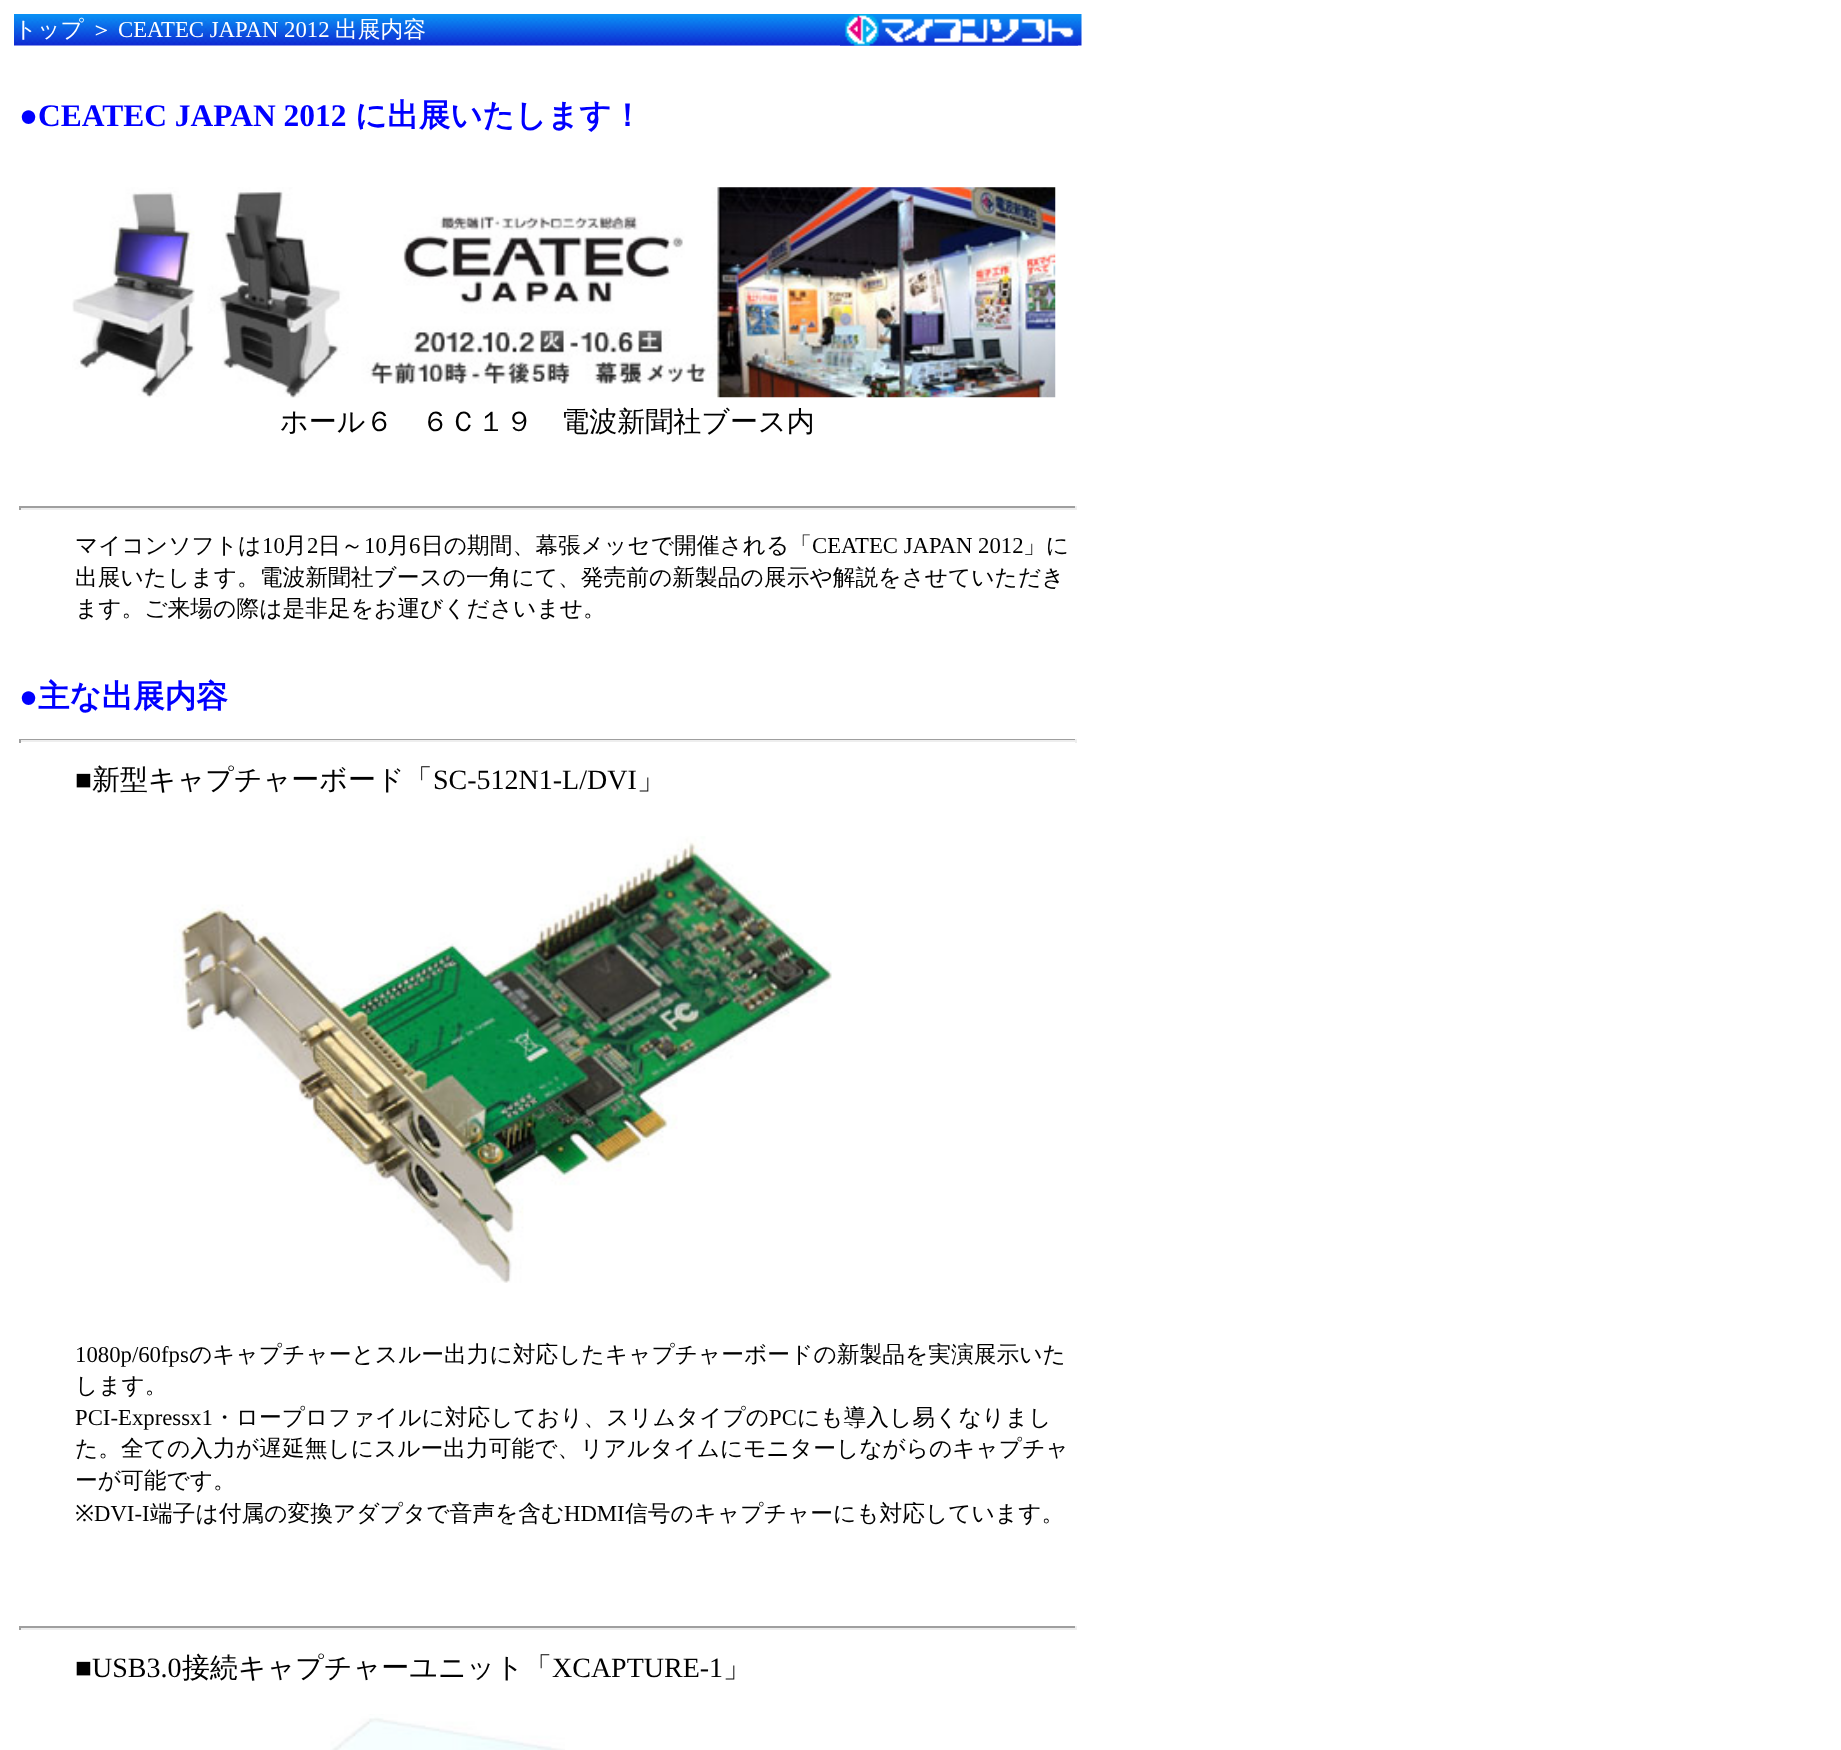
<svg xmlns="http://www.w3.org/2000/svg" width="1841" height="1750">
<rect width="100%" height="100%" fill="#fff"/>
<image x="14" y="14" width="826" height="32" href="media/1.png"/>
<text x="14" y="37" style="font-family:WenQuanYi Zen Hei;font-size:22.75px;font-weight:500;fill:#fff">トップ</text>
<text x="90" y="37" style="font-family:WenQuanYi Zen Hei;font-size:22.75px;font-weight:500;fill:#fff">＞</text>
<text x="118" y="37" style="font-family:Liberation Serif;font-size:22.75px;fill:#fff">CEATEC JAPAN 2012</text>
<text x="335" y="37" style="font-family:WenQuanYi Zen Hei;font-size:22.75px;font-weight:500;fill:#fff">出展内容</text>
<image x="840" y="14" width="242" height="32" href="media/2.png"/>
<image x="840" y="14" width="238" height="32" href="media/3.png"/>
<text x="19" y="126" style="font-family:Liberation Serif;font-size:31.5px;font-weight:bold;fill:#00f">●CEATEC JAPAN 2012</text>
<text x="355" y="126" style="font-family:WenQuanYi Zen Hei;font-size:31.5px;font-weight:bold;fill:#00f">に出展いたします！</text>
<image x="72" y="187" width="984" height="211" href="media/4.png"/>
<text x="280" y="431" style="font-family:WenQuanYi Zen Hei;font-size:28px;font-weight:500;fill:#000">ホール６　６Ｃ１９　電波新聞社ブース内</text>
<rect x="19" y="506" width="1057" height="2" fill="#9f9f9f"/>
<rect x="1075" y="506" width="2" height="4" fill="#eee"/>
<rect x="19" y="508" width="1057" height="2" fill="#eee"/>
<rect x="19" y="506" width="2" height="4" fill="#9f9f9f"/>
<text x="75" y="553" style="font-family:WenQuanYi Zen Hei;font-size:22.75px;font-weight:500;fill:#000">マイコンソフトは</text>
<text x="262" y="553" style="font-family:Liberation Serif;font-size:22.75px;fill:#000">10</text>
<text x="284" y="553" style="font-family:WenQuanYi Zen Hei;font-size:22.75px;font-weight:500;fill:#000">月</text>
<text x="307" y="553" style="font-family:Liberation Serif;font-size:22.75px;fill:#000">2</text>
<text x="318" y="553" style="font-family:WenQuanYi Zen Hei;font-size:22.75px;font-weight:500;fill:#000">日～</text>
<text x="364" y="553" style="font-family:Liberation Serif;font-size:22.75px;fill:#000">10</text>
<text x="387" y="553" style="font-family:WenQuanYi Zen Hei;font-size:22.75px;font-weight:500;fill:#000">月</text>
<text x="409" y="553" style="font-family:Liberation Serif;font-size:22.75px;fill:#000">6</text>
<text x="421" y="553" style="font-family:WenQuanYi Zen Hei;font-size:22.75px;font-weight:500;fill:#000">日の期間、幕張メッセで開催される「</text>
<text x="812" y="553" style="font-family:Liberation Serif;font-size:22.75px;fill:#000">CEATEC JAPAN 2012</text>
<text x="1023" y="553" style="font-family:WenQuanYi Zen Hei;font-size:22.75px;font-weight:500;fill:#000">」に</text>
<text x="75" y="585" style="font-family:WenQuanYi Zen Hei;font-size:22.75px;font-weight:500;fill:#000">出展いたします。電波新聞社ブースの一角にて、発売前の新製品の展示や解説をさせていただき</text>
<text x="75" y="616" style="font-family:WenQuanYi Zen Hei;font-size:22.75px;font-weight:500;fill:#000">ます。ご来場の際は是非足をお運びくださいませ。</text>
<text x="19" y="707" style="font-family:Liberation Serif;font-size:31.5px;font-weight:bold;fill:#00f">●</text>
<text x="38" y="707" style="font-family:WenQuanYi Zen Hei;font-size:31.5px;font-weight:bold;fill:#00f">主な出展内容</text>
<rect x="19" y="739" width="1057" height="1" fill="#9f9f9f"/>
<rect x="1075" y="739" width="2" height="4" fill="#eee"/>
<rect x="19" y="740" width="1057" height="2" fill="#eee"/>
<rect x="19" y="739" width="2" height="4" fill="#9f9f9f"/>
<text x="75" y="789" style="font-family:Liberation Serif;font-size:28px;fill:#000">■</text>
<text x="92" y="789" style="font-family:WenQuanYi Zen Hei;font-size:28px;font-weight:500;fill:#000">新型キャプチャーボード「</text>
<text x="433" y="789" style="font-family:Liberation Serif;font-size:28px;fill:#000">SC-512N1-L/DVI</text>
<text x="637" y="789" style="font-family:WenQuanYi Zen Hei;font-size:28px;font-weight:500;fill:#000">」</text>
<image x="173" y="836" width="659" height="447" href="media/5.png"/>
<text x="75" y="1362" style="font-family:Liberation Serif;font-size:22.75px;fill:#000">1080p/60fps</text>
<text x="189" y="1362" style="font-family:WenQuanYi Zen Hei;font-size:22.75px;font-weight:500;fill:#000">のキャプチャーとスルー出力に対応したキャプチャーボードの新製品を実演展示いた</text>
<text x="75" y="1393" style="font-family:WenQuanYi Zen Hei;font-size:22.75px;font-weight:500;fill:#000">します。</text>
<text x="75" y="1425" style="font-family:Liberation Serif;font-size:22.75px;fill:#000">PCI-Expressx1</text>
<text x="213" y="1425" style="font-family:WenQuanYi Zen Hei;font-size:22.75px;font-weight:500;fill:#000">・ロープロファイルに対応しており、スリムタイプの</text>
<text x="769" y="1425" style="font-family:Liberation Serif;font-size:22.75px;fill:#000">PC</text>
<text x="797" y="1425" style="font-family:WenQuanYi Zen Hei;font-size:22.75px;font-weight:500;fill:#000">にも導入し易くなりまし</text>
<text x="75" y="1456" style="font-family:WenQuanYi Zen Hei;font-size:22.75px;font-weight:500;fill:#000">た。全ての入力が遅延無しにスルー出力可能で、リアルタイムにモニターしながらのキャプチャ</text>
<text x="75" y="1488" style="font-family:WenQuanYi Zen Hei;font-size:22.75px;font-weight:500;fill:#000">ーが可能です。</text>
<text x="75" y="1521" style="font-family:Noto Sans;font-size:22.75px;fill:#000">※</text>
<text x="94" y="1521" style="font-family:Liberation Serif;font-size:22.75px;fill:#000">DVI-I</text>
<text x="150" y="1521" style="font-family:WenQuanYi Zen Hei;font-size:22.75px;font-weight:500;fill:#000">端子は付属の変換アダプタで音声を含む</text>
<text x="564" y="1521" style="font-family:Liberation Serif;font-size:22.75px;fill:#000">HDMI</text>
<text x="625" y="1521" style="font-family:WenQuanYi Zen Hei;font-size:22.75px;font-weight:500;fill:#000">信号のキャプチャーにも対応しています。</text>
<rect x="19" y="1626" width="1057" height="2" fill="#9f9f9f"/>
<rect x="1075" y="1626" width="2" height="4" fill="#eee"/>
<rect x="19" y="1628" width="1057" height="2" fill="#eee"/>
<rect x="19" y="1626" width="2" height="4" fill="#9f9f9f"/>
<text x="75" y="1677" style="font-family:Liberation Serif;font-size:28px;fill:#000">■USB3.0</text>
<text x="182" y="1677" style="font-family:WenQuanYi Zen Hei;font-size:28px;font-weight:500;fill:#000">接続キャプチャーユニット「</text>
<text x="552" y="1677" style="font-family:Liberation Serif;font-size:28px;fill:#000">XCAPTURE-1</text>
<text x="723" y="1677" style="font-family:WenQuanYi Zen Hei;font-size:28px;font-weight:500;fill:#000">」</text>
<image x="330" y="1714" width="235" height="36" href="media/6.png"/>
</svg>
